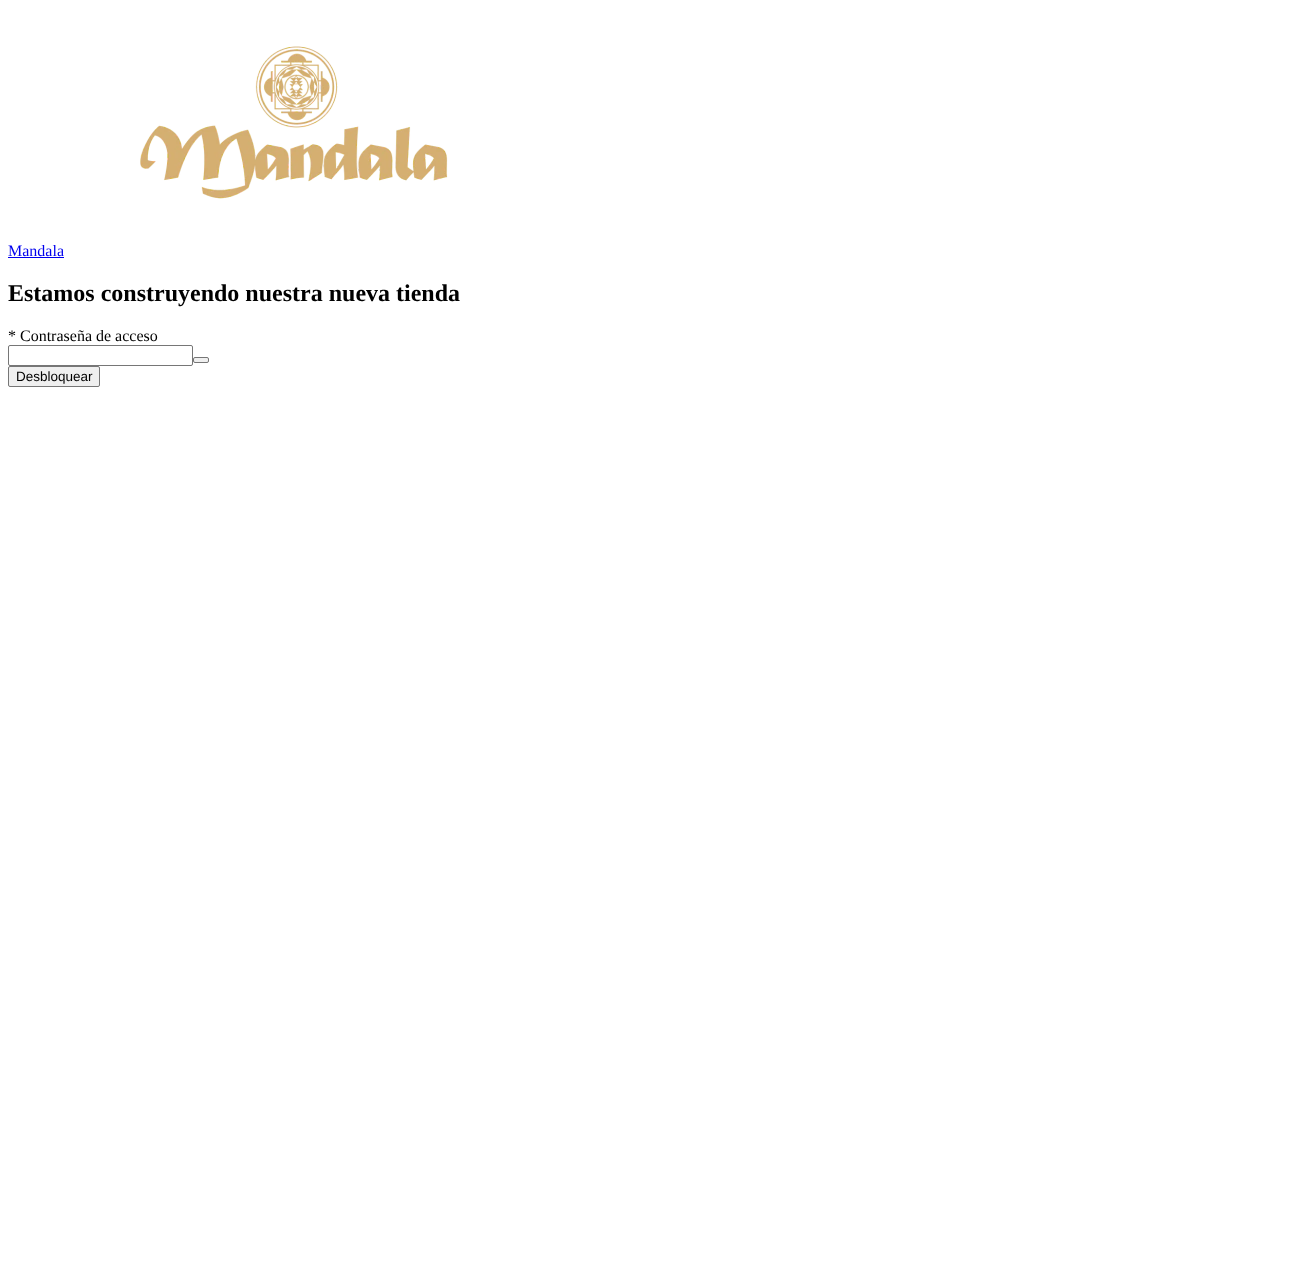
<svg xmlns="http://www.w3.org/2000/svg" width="1309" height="1274">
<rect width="100%" height="100%" fill="#fff"/>
<image x="140" y="46" width="308" height="153" href="media/1.png"/>
<text x="8" y="256" style="font-family:Liberation Serif;font-size:16px;fill:#00e">Mandala</text>
<rect x="8" y="257" width="56" height="1" fill="#00e"/>
<text x="8" y="301" style="font-family:Liberation Serif;font-size:24px;font-weight:bold;fill:#000">Estamos construyendo nuestra nueva tienda</text>
<text x="8" y="341" style="font-family:Liberation Serif;font-size:16px;fill:#000">* Contraseña de acceso</text>
<rect x="8.5" y="345.5" width="184" height="20" rx="1.5" fill="none" stroke="#767676"/>
<rect x="193.5" y="357.5" width="15" height="5" rx="1.5" fill="#efefef" stroke="#767676"/>
<rect x="8.5" y="366.5" width="91" height="20" rx="1.5" fill="#efefef" stroke="#767676"/>
<text x="16" y="381" style="font-family:Liberation Sans;font-size:13.5px;fill:#000">Desbloquear</text>
</svg>
